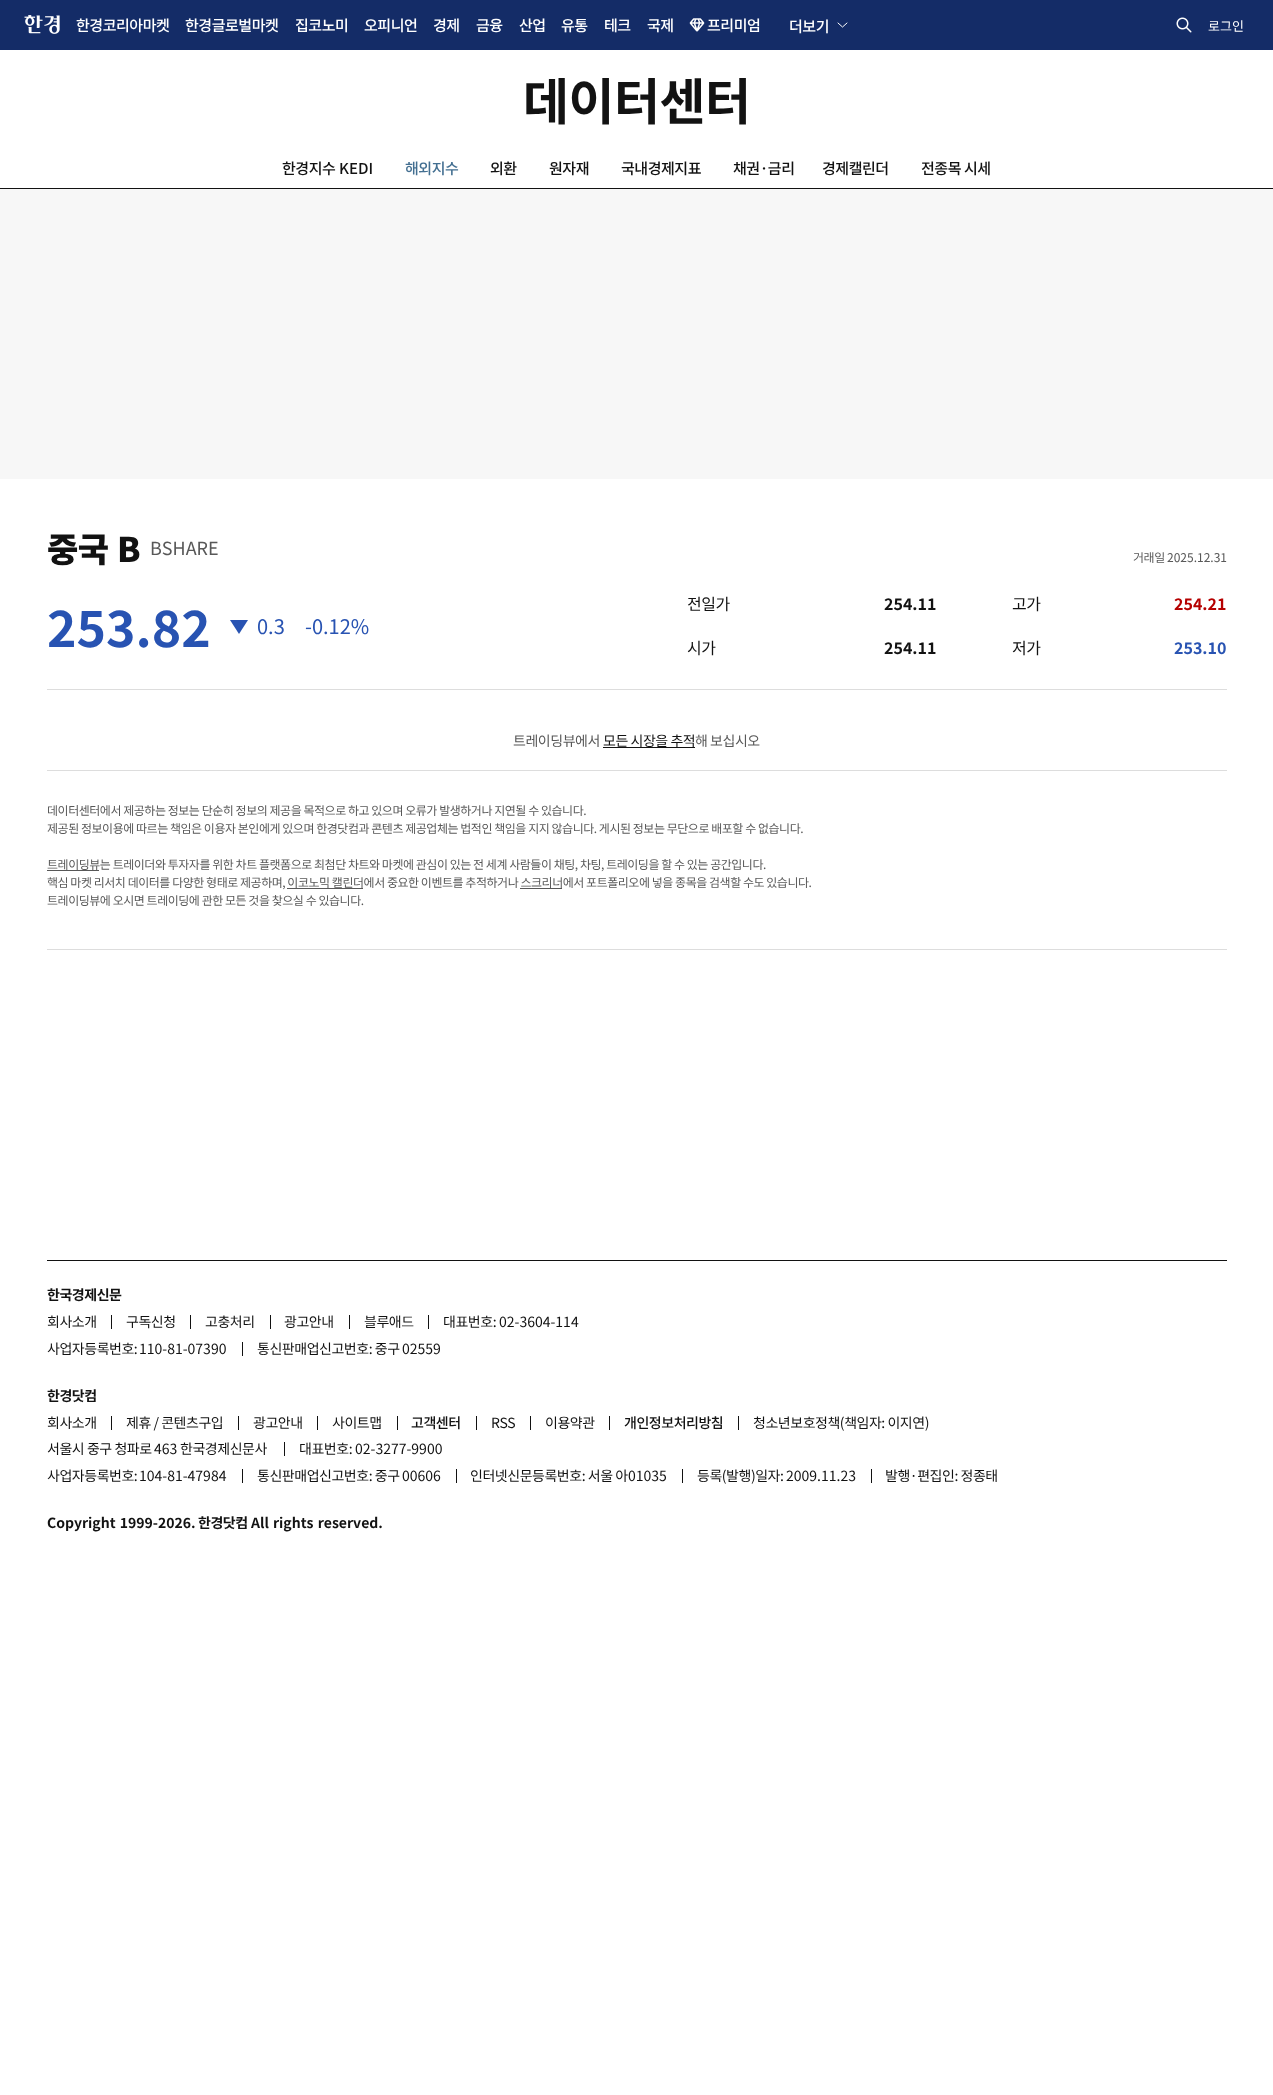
<svg xmlns="http://www.w3.org/2000/svg" width="1273" height="2095">
<style>*{font-kerning:none!important;font-variant-ligatures:none!important}</style>
<rect width="100%" height="100%" fill="#fff"/>
<rect y="188" width="1273" height="1" fill="#121212"/>
<rect width="1273" height="50" fill="#142c67"/>
<image x="24" y="15" width="36" height="19" href="media/1.png"/>
<text x="76" y="31" style="font-family:Noto Sans KR;font-size:15px;font-weight:500;letter-spacing:-0.47px;fill:#fff">한경코리아마켓</text>
<text x="185" y="31" style="font-family:Noto Sans KR;font-size:15px;font-weight:500;letter-spacing:-0.47px;fill:#fff">한경글로벌마켓</text>
<text x="295" y="31" style="font-family:Noto Sans KR;font-size:15px;font-weight:500;letter-spacing:-0.47px;fill:#fff">집코노미</text>
<text x="364" y="31" style="font-family:Noto Sans KR;font-size:15px;font-weight:500;letter-spacing:-0.47px;fill:#fff">오피니언</text>
<text x="433" y="31" style="font-family:Noto Sans KR;font-size:15px;font-weight:500;letter-spacing:-0.47px;fill:#fff">경제</text>
<text x="476" y="31" style="font-family:Noto Sans KR;font-size:15px;font-weight:500;letter-spacing:-0.47px;fill:#fff">금융</text>
<text x="519" y="31" style="font-family:Noto Sans KR;font-size:15px;font-weight:500;letter-spacing:-0.47px;fill:#fff">산업</text>
<text x="561" y="31" style="font-family:Noto Sans KR;font-size:15px;font-weight:500;letter-spacing:-0.47px;fill:#fff">유통</text>
<text x="604" y="31" style="font-family:Noto Sans KR;font-size:15px;font-weight:500;letter-spacing:-0.47px;fill:#fff">테크</text>
<text x="647" y="31" style="font-family:Noto Sans KR;font-size:15px;font-weight:500;letter-spacing:-0.47px;fill:#fff">국제</text>
<image x="689" y="18" width="16" height="14" href="media/2.png"/>
<text x="707" y="31" style="font-family:Noto Sans KR;font-size:15px;font-weight:500;letter-spacing:-0.47px;fill:#fff">프리미엄</text>
<text x="789" y="32" style="font-family:Noto Sans KR;font-size:15px;font-weight:500;letter-spacing:-0.47px;fill:#fff">더보기</text>
<path d="M838 23l4.5 4l4.5-4" fill="none" stroke="#fff" stroke-linecap="round" stroke-linejoin="round"/>
<image x="1176" y="17" width="16" height="16" href="media/3.png"/>
<text x="1208" y="31" style="font-family:Noto Sans KR;font-size:13px;fill:#fff">로그인</text>
<text x="523" y="120" style="font-family:Noto Sans KR;font-size:50px;font-weight:bold;letter-spacing:-0.47px;fill:#121212">데이터센터</text>
<text x="282" y="174" style="font-family:Noto Sans KR;font-size:15px;font-weight:500;letter-spacing:-0.47px;fill:#121212">한경지수</text>
<text x="339" y="174" style="font-family:Noto Sans KR;font-size:15px;font-weight:500;fill:#121212">KEDI</text>
<text x="405" y="174" style="font-family:Noto Sans KR;font-size:15px;font-weight:500;letter-spacing:-0.47px;fill:#436f91">해외지수</text>
<text x="490" y="174" style="font-family:Noto Sans KR;font-size:15px;font-weight:500;letter-spacing:-0.47px;fill:#121212">외환</text>
<text x="549" y="174" style="font-family:Noto Sans KR;font-size:15px;font-weight:500;letter-spacing:-0.47px;fill:#121212">원자재</text>
<text x="621" y="174" style="font-family:Noto Sans KR;font-size:15px;font-weight:500;letter-spacing:-0.47px;fill:#121212">국내경제지표</text>
<text x="733" y="174" style="font-family:Noto Sans KR;font-size:15px;font-weight:500;letter-spacing:-0.47px;fill:#121212">채권·금리</text>
<text x="822" y="174" style="font-family:Noto Sans KR;font-size:15px;font-weight:500;letter-spacing:-0.47px;fill:#121212">경제캘린더</text>
<text x="921" y="174" style="font-family:Noto Sans KR;font-size:15px;font-weight:500;letter-spacing:-0.47px;fill:#121212">전종목 시세</text>
<rect y="189" width="1273" height="290" fill="#f7f7f7"/>
<rect x="47" y="689" width="1180" height="1" fill="#ddd"/>
<text x="47" y="562" word-spacing="1" style="font-family:Noto Sans KR;font-size:34px;font-weight:900;letter-spacing:-0.47px;fill:#121212">중국 B</text>
<text x="150" y="555" style="font-family:Noto Sans KR;font-size:18px;fill:#585858">BSHARE</text>
<text x="1133" y="562" style="font-family:Noto Sans KR;font-size:12px;letter-spacing:-0.47px;fill:#585858">거래일</text>
<text x="1167" y="562" style="font-family:Noto Sans KR;font-size:12px;fill:#585858">2025.12.31</text>
<text x="47" y="647" style="font-family:Noto Sans KR;font-size:50px;font-weight:bold;fill:#2853b2">253.82</text>
<path d="M230 620h18l-9 14z" fill="#2853b2"/>
<text x="257" y="634" style="font-family:Noto Sans KR;font-size:20px;fill:#2853b2">0.3</text>
<text x="305" y="634" style="font-family:Noto Sans KR;font-size:20px;fill:#2853b2">-0.12%</text>
<text x="687" y="610" style="font-family:Noto Sans KR;font-size:16px;letter-spacing:-0.47px;fill:#121212">전일가</text>
<text x="884" y="610" style="font-family:Noto Sans KR;font-size:16px;font-weight:bold;fill:#121212">254.11</text>
<text x="687" y="654" style="font-family:Noto Sans KR;font-size:16px;letter-spacing:-0.47px;fill:#121212">시가</text>
<text x="884" y="654" style="font-family:Noto Sans KR;font-size:16px;font-weight:bold;fill:#121212">254.11</text>
<text x="1012" y="610" style="font-family:Noto Sans KR;font-size:16px;letter-spacing:-0.47px;fill:#121212">고가</text>
<text x="1174" y="610" style="font-family:Noto Sans KR;font-size:16px;font-weight:bold;fill:#b50000">254.21</text>
<text x="1012" y="654" style="font-family:Noto Sans KR;font-size:16px;letter-spacing:-0.47px;fill:#121212">저가</text>
<text x="1174" y="654" style="font-family:Noto Sans KR;font-size:16px;font-weight:bold;fill:#2853b2">253.10</text>
<text x="513" y="746" style="font-family:Noto Sans KR;font-size:14px;letter-spacing:-0.47px;fill:#585858">트레이딩뷰에서</text>
<rect x="603" y="747" width="92" height="1" fill="#121212"/>
<text x="603" y="746" style="font-family:Noto Sans KR;font-size:14px;letter-spacing:-0.47px;fill:#121212">모든 시장을 추적</text>
<text x="695" y="746" style="font-family:Noto Sans KR;font-size:14px;letter-spacing:-0.47px;fill:#585858">해 보십시오</text>
<rect x="47" y="770" width="1180" height="1" fill="#ddd"/>
<text x="47" y="815" style="font-family:Noto Sans KR;font-size:12px;letter-spacing:-0.47px;fill:#585858">데이터센터에서 제공하는 정보는 단순히 정보의 제공을 목적으로 하고 있으며 오류가 발생하거나 지연될 수 있습니다.</text>
<text x="47" y="833" style="font-family:Noto Sans KR;font-size:12px;letter-spacing:-0.47px;fill:#585858">제공된 정보이용에 따르는 책임은 이용자 본인에게 있으며 한경닷컴과 콘텐츠 제공업체는 법적인 책임을 지지 않습니다. 게시된 정보는 무단으로 배포할 수 없습니다.</text>
<rect x="47" y="870" width="52" height="1" fill="#585858"/>
<text x="47" y="869" style="font-family:Noto Sans KR;font-size:12px;letter-spacing:-0.47px;fill:#585858">트레이딩뷰는 트레이더와 투자자를 위한 차트 플랫폼으로 최첨단 차트와 마켓에 관심이 있는 전 세계 사람들이 채팅, 차팅, 트레이딩을 할 수 있는 공간입니다.</text>
<text x="47" y="887" style="font-family:Noto Sans KR;font-size:12px;letter-spacing:-0.47px;fill:#585858">핵심 마켓 리서치 데이터를 다양한 형태로 제공하며, 이코노믹 캘린더에서 중요한 이벤트를 추적하거나 스크리너에서 포트폴리오에 넣을 종목을 검색할 수도 있습니다.</text>
<rect x="287" y="888" width="76" height="1" fill="#585858"/>
<rect x="520" y="888" width="42" height="1" fill="#585858"/>
<text x="47" y="905" style="font-family:Noto Sans KR;font-size:12px;letter-spacing:-0.47px;fill:#585858">트레이딩뷰에 오시면 트레이딩에 관한 모든 것을 찾으실 수 있습니다.</text>
<rect x="47" y="949" width="1180" height="1" fill="#ddd"/>
<rect x="47" y="1260" width="1180" height="1" fill="#121212"/>
<text x="47" y="1300" style="font-family:Noto Sans KR;font-size:14px;font-weight:bold;letter-spacing:-0.47px;fill:#121212">한국경제신문</text>
<text x="47" y="1327" style="font-family:Noto Sans KR;font-size:14px;letter-spacing:-0.47px;fill:#121212">회사소개</text>
<rect x="111" y="1315" width="1" height="14" fill="#121212"/>
<text x="126" y="1327" style="font-family:Noto Sans KR;font-size:14px;letter-spacing:-0.47px;fill:#121212">구독신청</text>
<rect x="190" y="1315" width="1" height="14" fill="#121212"/>
<text x="205" y="1327" style="font-family:Noto Sans KR;font-size:14px;letter-spacing:-0.47px;fill:#121212">고충처리</text>
<rect x="270" y="1315" width="1" height="14" fill="#121212"/>
<text x="284" y="1327" style="font-family:Noto Sans KR;font-size:14px;letter-spacing:-0.47px;fill:#121212">광고안내</text>
<rect x="349" y="1315" width="1" height="14" fill="#121212"/>
<text x="364" y="1327" style="font-family:Noto Sans KR;font-size:14px;letter-spacing:-0.47px;fill:#121212">블루애드</text>
<rect x="428" y="1315" width="1" height="14" fill="#121212"/>
<text x="443" y="1327" style="font-family:Noto Sans KR;font-size:14px;letter-spacing:-0.47px;fill:#121212">대표번호:</text>
<text x="499" y="1327" style="font-family:Noto Sans KR;font-size:14px;fill:#121212">02-3604-114</text>
<text x="47" y="1354" style="font-family:Noto Sans KR;font-size:14px;letter-spacing:-0.47px;fill:#121212">사업자등록번호:</text>
<text x="139" y="1354" style="font-family:Noto Sans KR;font-size:14px;fill:#121212">110-81-07390</text>
<rect x="242" y="1342" width="1" height="14" fill="#121212"/>
<text x="257" y="1354" style="font-family:Noto Sans KR;font-size:14px;letter-spacing:-0.47px;fill:#121212">통신판매업신고번호: 중구</text>
<text x="402" y="1354" style="font-family:Noto Sans KR;font-size:14px;fill:#121212">02559</text>
<text x="47" y="1401" style="font-family:Noto Sans KR;font-size:14px;font-weight:bold;letter-spacing:-0.47px;fill:#121212">한경닷컴</text>
<text x="47" y="1428" style="font-family:Noto Sans KR;font-size:14px;letter-spacing:-0.47px;fill:#121212">회사소개</text>
<rect x="111" y="1416" width="1" height="14" fill="#121212"/>
<text x="126" y="1428" style="font-family:Noto Sans KR;font-size:14px;letter-spacing:-0.47px;fill:#121212">제휴 / 콘텐츠구입</text>
<rect x="238" y="1416" width="1" height="14" fill="#121212"/>
<text x="253" y="1428" style="font-family:Noto Sans KR;font-size:14px;letter-spacing:-0.47px;fill:#121212">광고안내</text>
<rect x="317" y="1416" width="1" height="14" fill="#121212"/>
<text x="332" y="1428" style="font-family:Noto Sans KR;font-size:14px;letter-spacing:-0.47px;fill:#121212">사이트맵</text>
<rect x="397" y="1416" width="1" height="14" fill="#121212"/>
<text x="411" y="1428" style="font-family:Noto Sans KR;font-size:14px;font-weight:500;letter-spacing:-0.47px;fill:#121212">고객센터</text>
<rect x="476" y="1416" width="1" height="14" fill="#121212"/>
<text x="491" y="1428" style="font-family:Noto Sans KR;font-size:14px;letter-spacing:-0.47px;fill:#121212">RSS</text>
<rect x="530" y="1416" width="1" height="14" fill="#121212"/>
<text x="545" y="1428" style="font-family:Noto Sans KR;font-size:14px;letter-spacing:-0.47px;fill:#121212">이용약관</text>
<rect x="609" y="1416" width="1" height="14" fill="#121212"/>
<text x="624" y="1428" style="font-family:Noto Sans KR;font-size:14px;font-weight:500;letter-spacing:-0.47px;fill:#121212">개인정보처리방침</text>
<rect x="738" y="1416" width="1" height="14" fill="#121212"/>
<text x="753" y="1428" style="font-family:Noto Sans KR;font-size:14px;letter-spacing:-0.47px;fill:#121212">청소년보호정책(책임자: 이지연)</text>
<text x="47" y="1454" style="font-family:Noto Sans KR;font-size:14px;letter-spacing:-0.47px;fill:#121212">서울시 중구 청파로</text>
<text x="154" y="1454" style="font-family:Noto Sans KR;font-size:14px;fill:#121212">463</text>
<text x="180" y="1454" style="font-family:Noto Sans KR;font-size:14px;letter-spacing:-0.47px;fill:#121212">한국경제신문사</text>
<rect x="284" y="1442" width="1" height="14" fill="#121212"/>
<text x="299" y="1454" style="font-family:Noto Sans KR;font-size:14px;letter-spacing:-0.47px;fill:#121212">대표번호:</text>
<text x="355" y="1454" style="font-family:Noto Sans KR;font-size:14px;fill:#121212">02-3277-9900</text>
<text x="47" y="1481" style="font-family:Noto Sans KR;font-size:14px;letter-spacing:-0.47px;fill:#121212">사업자등록번호:</text>
<text x="139" y="1481" style="font-family:Noto Sans KR;font-size:14px;fill:#121212">104-81-47984</text>
<rect x="242" y="1469" width="1" height="14" fill="#121212"/>
<text x="257" y="1481" style="font-family:Noto Sans KR;font-size:14px;letter-spacing:-0.47px;fill:#121212">통신판매업신고번호: 중구</text>
<text x="402" y="1481" style="font-family:Noto Sans KR;font-size:14px;fill:#121212">00606</text>
<rect x="456" y="1469" width="1" height="14" fill="#121212"/>
<text x="470" y="1481" style="font-family:Noto Sans KR;font-size:14px;letter-spacing:-0.47px;fill:#121212">인터넷신문등록번호: 서울 아</text>
<text x="628" y="1481" style="font-family:Noto Sans KR;font-size:14px;fill:#121212">01035</text>
<rect x="682" y="1469" width="1" height="14" fill="#121212"/>
<text x="697" y="1481" style="font-family:Noto Sans KR;font-size:14px;letter-spacing:-0.47px;fill:#121212">등록(발행)일자:</text>
<text x="786" y="1481" style="font-family:Noto Sans KR;font-size:14px;fill:#121212">2009.11.23</text>
<rect x="871" y="1469" width="1" height="14" fill="#121212"/>
<text x="885" y="1481" style="font-family:Noto Sans KR;font-size:14px;letter-spacing:-0.47px;fill:#121212">발행·편집인: 정종태</text>
<text x="47" y="1528" word-spacing="1" style="font-family:Noto Sans KR;font-size:14px;font-weight:bold;fill:#121212">Copyright 1999-2026.</text>
<text x="198" y="1528" style="font-family:Noto Sans KR;font-size:14px;font-weight:bold;letter-spacing:-0.47px;fill:#121212">한경닷컴</text>
<text x="251" y="1528" word-spacing="1" style="font-family:Noto Sans KR;font-size:14px;font-weight:bold;fill:#121212">All rights reserved.</text>
</svg>
